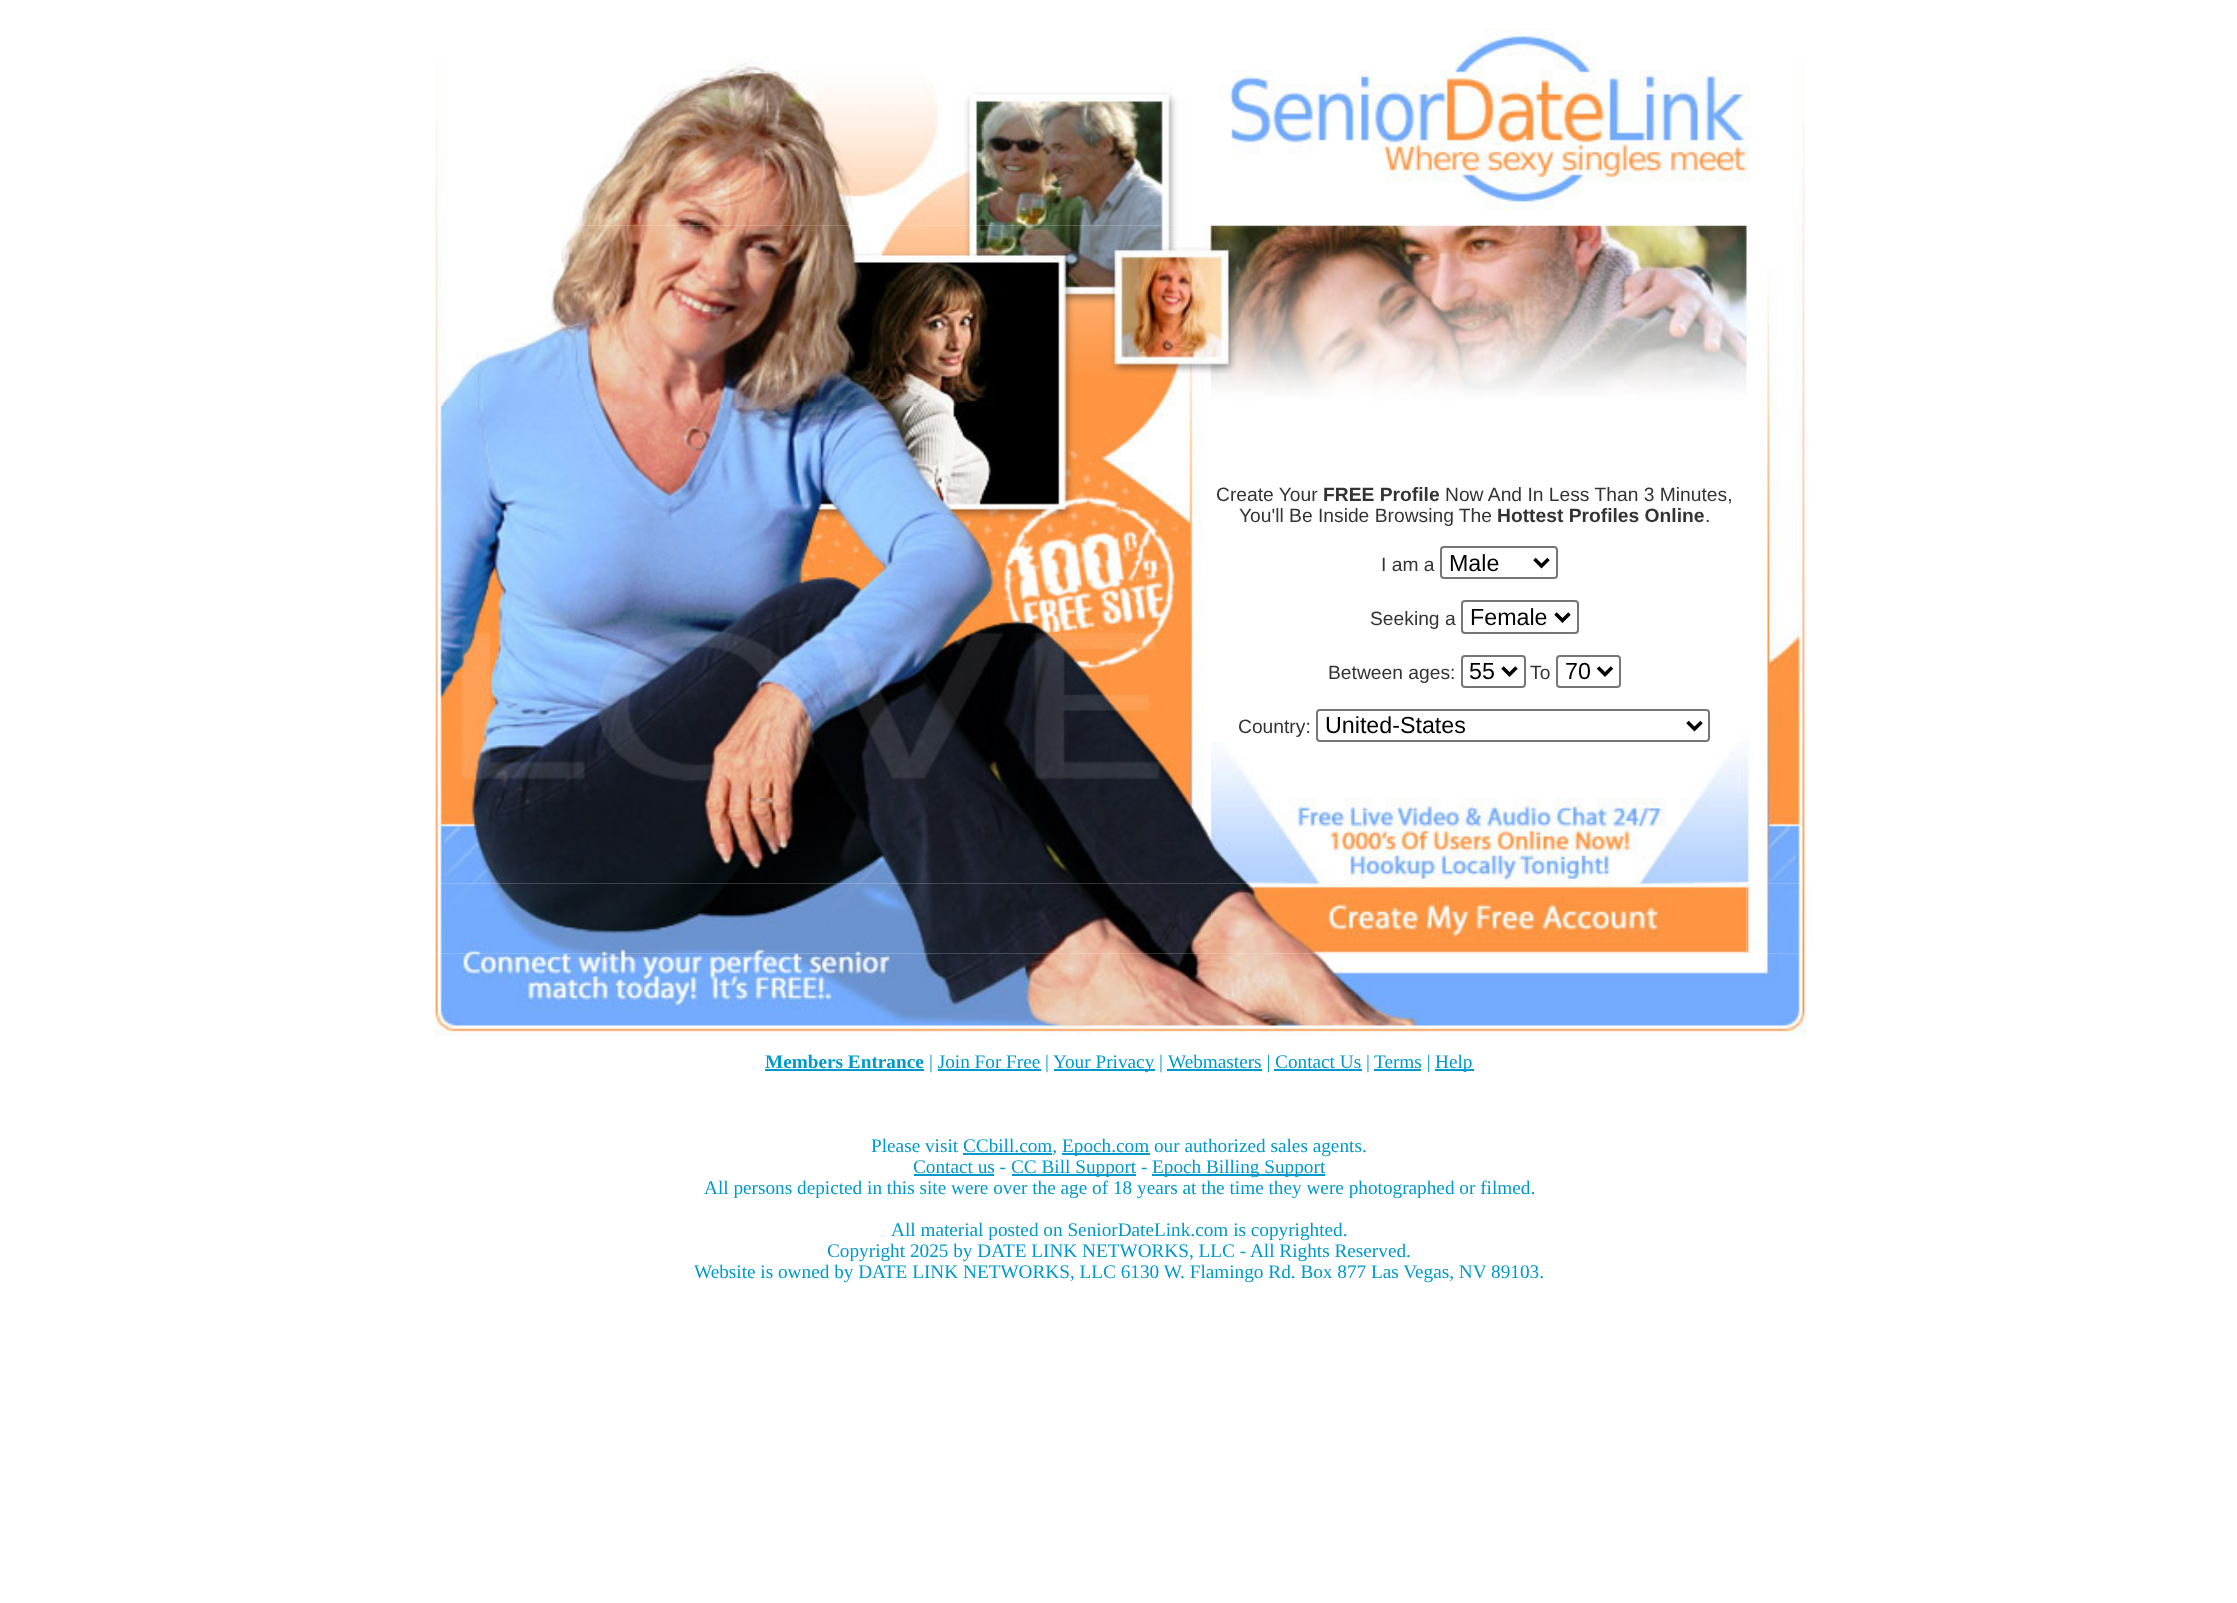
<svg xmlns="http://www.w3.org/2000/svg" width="2237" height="1603">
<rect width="100%" height="100%" fill="#fff"/>
<image x="434" y="28" width="1372" height="198" href="media/1.png"/>
<image x="434" y="225" width="1372" height="181" href="media/2.png"/>
<image x="434" y="406" width="770" height="392" href="media/3.png"/>
<image x="1211" y="742" width="529" height="56" href="media/4.png"/>
<text x="1216" y="501" style="font-family:Liberation Sans;font-size:19.25px;fill:#333">Create Your</text>
<text x="1323" y="501" style="font-family:Liberation Sans;font-size:19.25px;font-weight:bold;fill:#333">FREE Profile</text>
<text x="1445" y="501" style="font-family:Liberation Sans;font-size:19.25px;fill:#333">Now And In Less Than 3 Minutes,</text>
<text x="1239" y="522" style="font-family:Liberation Sans;font-size:19.25px;fill:#333">You'll Be Inside Browsing The</text>
<text x="1497" y="522" style="font-family:Liberation Sans;font-size:19.25px;font-weight:bold;fill:#333">Hottest Profiles Online</text>
<text x="1705" y="522" style="font-family:Liberation Sans;font-size:19.25px;fill:#333">.</text>
<text x="1381" y="571" style="font-family:Liberation Sans;font-size:19.25px;fill:#333">I am a</text>
<rect x="1441" y="547" width="116" height="31" rx="3" fill="none" stroke="#767676" stroke-width="2"/>
<path d="M1534.5 559l7 7l7-7" fill="none" stroke="#000" stroke-width="3.5"/>
<text x="1449" y="571" style="font-family:Liberation Sans;font-size:23.25px;fill:#000">Male</text>
<text x="1370" y="625" style="font-family:Liberation Sans;font-size:19.25px;fill:#333">Seeking a</text>
<rect x="1462" y="601" width="116" height="32" rx="3" fill="none" stroke="#767676" stroke-width="2"/>
<path d="M1555.5 613.5l7 7l7-7" fill="none" stroke="#000" stroke-width="3.5"/>
<text x="1470" y="625" style="font-family:Liberation Sans;font-size:23.25px;fill:#000">Female</text>
<text x="1328" y="679" style="font-family:Liberation Sans;font-size:19.25px;fill:#333">Between ages:</text>
<rect x="1462" y="656" width="63" height="31" rx="3" fill="none" stroke="#767676" stroke-width="2"/>
<path d="M1502.5 667.5l7 7l7-7" fill="none" stroke="#000" stroke-width="3.5"/>
<text x="1469" y="679" style="font-family:Liberation Sans;font-size:23.25px;fill:#000">55</text>
<text x="1530" y="679" style="font-family:Liberation Sans;font-size:19.25px;fill:#333">To</text>
<rect x="1557" y="656" width="63" height="31" rx="3" fill="none" stroke="#767676" stroke-width="2"/>
<path d="M1598 667.5l7 7l7-7" fill="none" stroke="#000" stroke-width="3.5"/>
<text x="1565" y="679" style="font-family:Liberation Sans;font-size:23.25px;fill:#000">70</text>
<text x="1238" y="733" style="font-family:Liberation Sans;font-size:19.25px;fill:#333">Country:</text>
<rect x="1317" y="710" width="392" height="31" rx="3" fill="none" stroke="#767676" stroke-width="2"/>
<path d="M1687.5 722l7 7l7-7" fill="none" stroke="#000" stroke-width="3.5"/>
<text x="1325" y="733" style="font-family:Liberation Sans;font-size:23.25px;fill:#000">United-States</text>
<image x="1739" y="406" width="70" height="392" href="media/5.png"/>
<image x="434" y="798" width="1373" height="86" href="media/6.png"/>
<image x="435" y="883" width="776" height="71" href="media/7.png"/>
<image x="1211" y="883" width="536" height="71" href="media/8.png"/>
<image x="1746" y="883" width="67" height="71" href="media/9.png"/>
<image x="434" y="953" width="1373" height="83" href="media/10.png"/>
<text x="765" y="1068" style="font-family:Liberation Serif;font-size:19.25px;font-weight:bold;fill:#09c">Members Entrance</text>
<rect x="765" y="1069" width="159" height="2" fill="#09c"/>
<text x="929" y="1068" style="font-family:Liberation Serif;font-size:19.25px;fill:#09c">| Join For Free</text>
<text x="1045" y="1068" style="font-family:Liberation Serif;font-size:19.25px;fill:#09c">|</text>
<rect x="1054" y="1069" width="101" height="2" fill="#09c"/>
<text x="1053" y="1068" style="font-family:Liberation Serif;font-size:19.25px;fill:#09c">Your Privacy |</text>
<rect x="1167" y="1069" width="95" height="2" fill="#09c"/>
<text x="1168" y="1068" style="font-family:Liberation Serif;font-size:19.25px;fill:#09c">Webmasters | Contact Us |</text>
<rect x="1374" y="1069" width="47" height="2" fill="#09c"/>
<text x="1374" y="1068" style="font-family:Liberation Serif;font-size:19.25px;fill:#09c">Terms |</text>
<rect x="1435" y="1069" width="39" height="2" fill="#09c"/>
<text x="1435" y="1068" style="font-family:Liberation Serif;font-size:19.25px;fill:#09c">Help</text>
<rect x="938" y="1069" width="103" height="2" fill="#09c"/>
<rect x="1274" y="1069" width="88" height="2" fill="#09c"/>
<text x="871" y="1152" style="font-family:Liberation Serif;font-size:19.25px;fill:#09c">Please visit CCbill.com,</text>
<rect x="1062" y="1153" width="88" height="2" fill="#09c"/>
<text x="1062" y="1152" style="font-family:Liberation Serif;font-size:19.25px;fill:#09c">Epoch.com our authorized sales agents.</text>
<rect x="963" y="1153" width="89" height="2" fill="#09c"/>
<text x="913" y="1173" style="font-family:Liberation Serif;font-size:19.25px;fill:#09c">Contact us -</text>
<rect x="914" y="1174" width="80" height="2" fill="#09c"/>
<rect x="1012" y="1174" width="124" height="2" fill="#09c"/>
<text x="1011" y="1173" style="font-family:Liberation Serif;font-size:19.25px;fill:#09c">CC Bill Support -</text>
<rect x="1152" y="1174" width="173" height="2" fill="#09c"/>
<text x="1152" y="1173" style="font-family:Liberation Serif;font-size:19.25px;fill:#09c">Epoch Billing Support</text>
<text x="704" y="1194" style="font-family:Liberation Serif;font-size:19.25px;fill:#09c">All persons depicted in this site were over the age of 18 years at the time they were photographed or filmed.</text>
<text x="891" y="1236" style="font-family:Liberation Serif;font-size:19.25px;fill:#09c">All material posted on SeniorDateLink.com is copyrighted.</text>
<text x="827" y="1257" style="font-family:Liberation Serif;font-size:19.25px;fill:#09c">Copyright 2025 by DATE LINK NETWORKS, LLC - All Rights Reserved.</text>
<text x="694" y="1278" style="font-family:Liberation Serif;font-size:19.25px;fill:#09c">Website is owned by DATE LINK NETWORKS, LLC 6130 W. Flamingo Rd. Box 877 Las Vegas, NV 89103.</text>
</svg>
